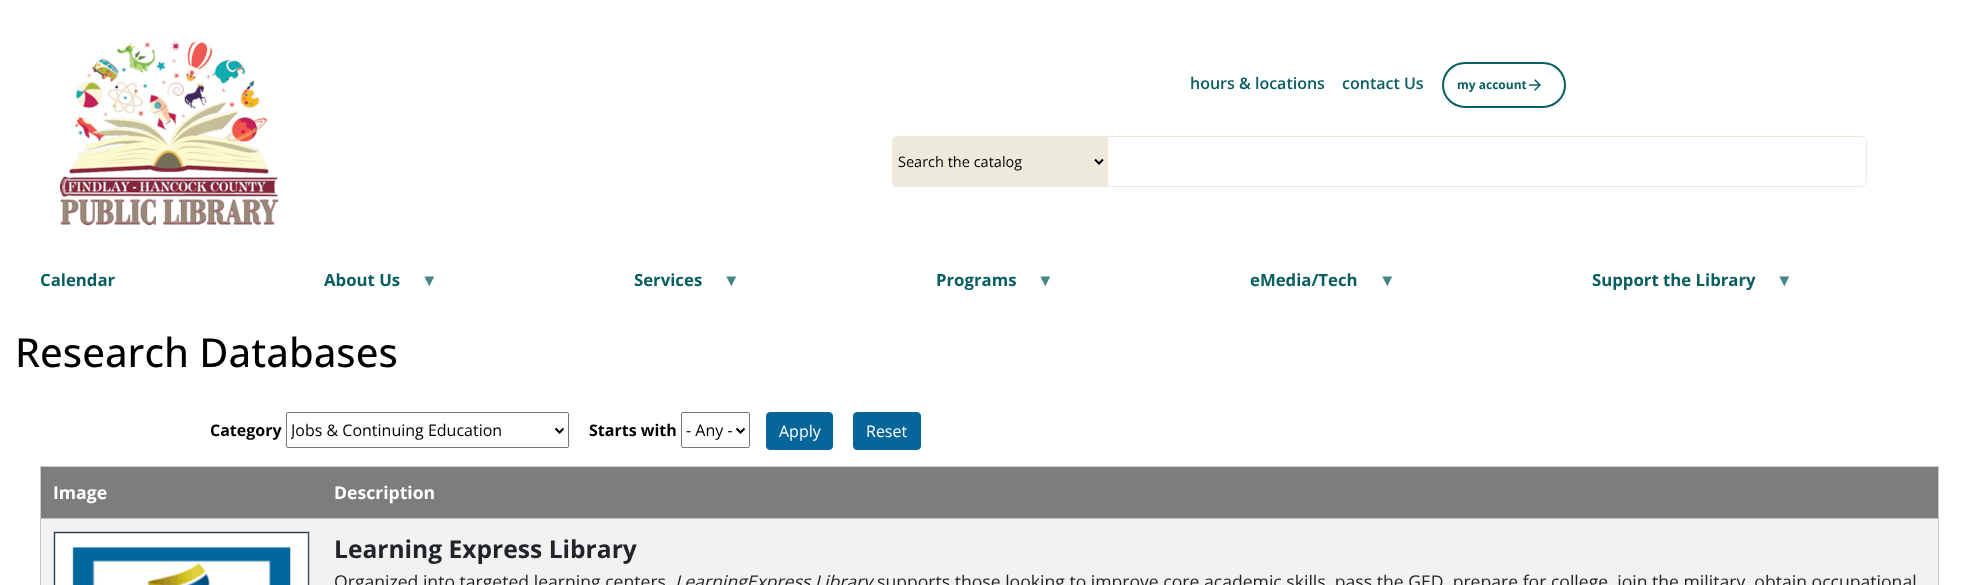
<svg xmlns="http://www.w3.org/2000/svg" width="1979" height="585">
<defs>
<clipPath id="clip1"><rect x="291" y="418" width="261" height="24"/></clipPath>
</defs>
<rect width="100%" height="100%" fill="#fff"/>
<image x="60" y="41" width="218" height="184" href="media/1.png"/>
<text x="1190" y="89" style="font-family:Open Sans;font-size:16px;font-weight:600;fill:#085e60">hours &amp; locations</text>
<text x="1342" y="89" style="font-family:Open Sans;font-size:16px;font-weight:600;fill:#085e60">contact Us</text>
<rect x="1443" y="63" width="122" height="44" rx="22" fill="none" stroke="#085e60" stroke-width="2"/>
<text x="1457" y="89" style="font-family:Open Sans;font-size:12px;font-weight:bold;fill:#085e60">my account</text>
<image x="1529" y="79" width="12" height="12" href="media/2.png"/>
<rect x="892.5" y="136.5" width="974" height="50" rx="5.5" fill="none" stroke="#edeadc"/>
<rect x="893" y="137" width="215" height="49" fill="#edeadc"/>
<path d="M1095 159.5l4 4l4-4" fill="none" stroke="#000" stroke-width="2"/>
<text x="898" y="167" style="font-family:Open Sans;font-size:14.5px;fill:#000">Search the catalog</text>
<text x="40" y="286" style="font-family:Open Sans;font-size:16.75px;font-weight:bold;fill:#085e60">Calendar</text>
<text x="324" y="286" style="font-family:Open Sans;font-size:16.75px;font-weight:bold;fill:#085e60">About Us</text>
<text x="421" y="286" style="font-family:Liberation Sans;font-size:16.75px;font-weight:bold;fill:#468688">▼</text>
<text x="634" y="286" style="font-family:Open Sans;font-size:16.75px;font-weight:bold;fill:#085e60">Services</text>
<text x="723" y="286" style="font-family:Liberation Sans;font-size:16.75px;font-weight:bold;fill:#468688">▼</text>
<text x="936" y="286" style="font-family:Open Sans;font-size:16.75px;font-weight:bold;fill:#085e60">Programs</text>
<text x="1037" y="286" style="font-family:Liberation Sans;font-size:16.75px;font-weight:bold;fill:#468688">▼</text>
<text x="1250" y="286" style="font-family:Open Sans;font-size:16.75px;font-weight:bold;fill:#085e60">eMedia/Tech</text>
<text x="1379" y="286" style="font-family:Liberation Sans;font-size:16.75px;font-weight:bold;fill:#468688">▼</text>
<text x="1592" y="286" style="font-family:Open Sans;font-size:16.75px;font-weight:bold;fill:#085e60">Support the Library</text>
<text x="1776" y="286" style="font-family:Liberation Sans;font-size:16.75px;font-weight:bold;fill:#468688">▼</text>
<rect x="41" y="519" width="1897" height="66" fill="#f2f2f2"/>
<text x="15" y="367" style="font-family:Open Sans;font-size:40px;font-weight:500;fill:#000">Research Databases</text>
<text x="210" y="436" style="font-family:Open Sans;font-size:16px;font-weight:bold;fill:#000">Category</text>
<rect x="286.5" y="412.5" width="282" height="35" rx="1.5" fill="none" stroke="#767676"/>
<path d="M555.5 428.5l4 4l4-4" fill="none" stroke="#000" stroke-width="2"/>
<g clip-path="url(#clip1)">
<text x="291" y="436" style="font-family:Open Sans;font-size:16px;fill:#000">Jobs &amp; Continuing Education</text>
</g>
<text x="589" y="436" style="font-family:Open Sans;font-size:16px;font-weight:bold;fill:#000">Starts with</text>
<rect x="681.5" y="412.5" width="68" height="35" rx="1.5" fill="none" stroke="#767676"/>
<path d="M736.5 428.5l4 4l4-4" fill="none" stroke="#000" stroke-width="2"/>
<text x="686" y="436" style="font-family:Open Sans;font-size:16px;fill:#000">- Any -</text>
<rect x="766.5" y="412.5" width="66" height="37" rx="3.5" fill="#066699" stroke="#066699"/>
<text x="779" y="437" style="font-family:Open Sans;font-size:16px;fill:#fff">Apply</text>
<rect x="853.5" y="412.5" width="67" height="37" rx="3.5" fill="#066699" stroke="#066699"/>
<text x="866" y="437" style="font-family:Open Sans;font-size:16px;fill:#fff">Reset</text>
<rect x="40" y="466" width="1899" height="1" fill="#ccc"/>
<rect x="40" y="518" width="1899" height="1" fill="#c2c2c2"/>
<rect x="1938" y="518" width="1" height="67" fill="#c2c2c2"/>
<rect x="1938" y="466" width="1" height="53" fill="#ccc"/>
<rect x="1938" y="518" width="1" height="1" fill="#c2c2c2"/>
<rect x="40" y="518" width="1" height="67" fill="#c2c2c2"/>
<rect x="40" y="466" width="1" height="53" fill="#ccc"/>
<rect x="40" y="518" width="1" height="1" fill="#c2c2c2"/>
<rect x="41" y="467" width="1897" height="51" fill="#7d7d7d"/>
<text x="53" y="499" style="font-family:Open Sans;font-size:17.6px;font-weight:bold;fill:#fff">Image</text>
<text x="334" y="499" style="font-family:Open Sans;font-size:17.6px;font-weight:bold;fill:#fff">Description</text>
<rect x="53.5" y="531.5" width="256" height="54" fill="none" stroke="#ccc"/>
<image x="54" y="532" width="255" height="53" href="media/3.png"/>
<text x="334" y="558" style="font-family:Open Sans;font-size:24.6px;font-weight:bold;fill:#212529">Learning Express Library</text>
<text x="334" y="588" style="font-family:Open Sans;font-size:17.6px;fill:#212529">Organized into targeted learning centers</text>
<text x="675" y="588" style="font-family:Open Sans;font-size:17.6px;font-style:italic;fill:#212529">LearningExpress Library</text>
<text x="877" y="588" style="font-family:Open Sans;font-size:17.6px;fill:#212529">supports those looking to improve core academic skills, pass the GED, prepare for college, join the military, obtain occupational</text>
</svg>
